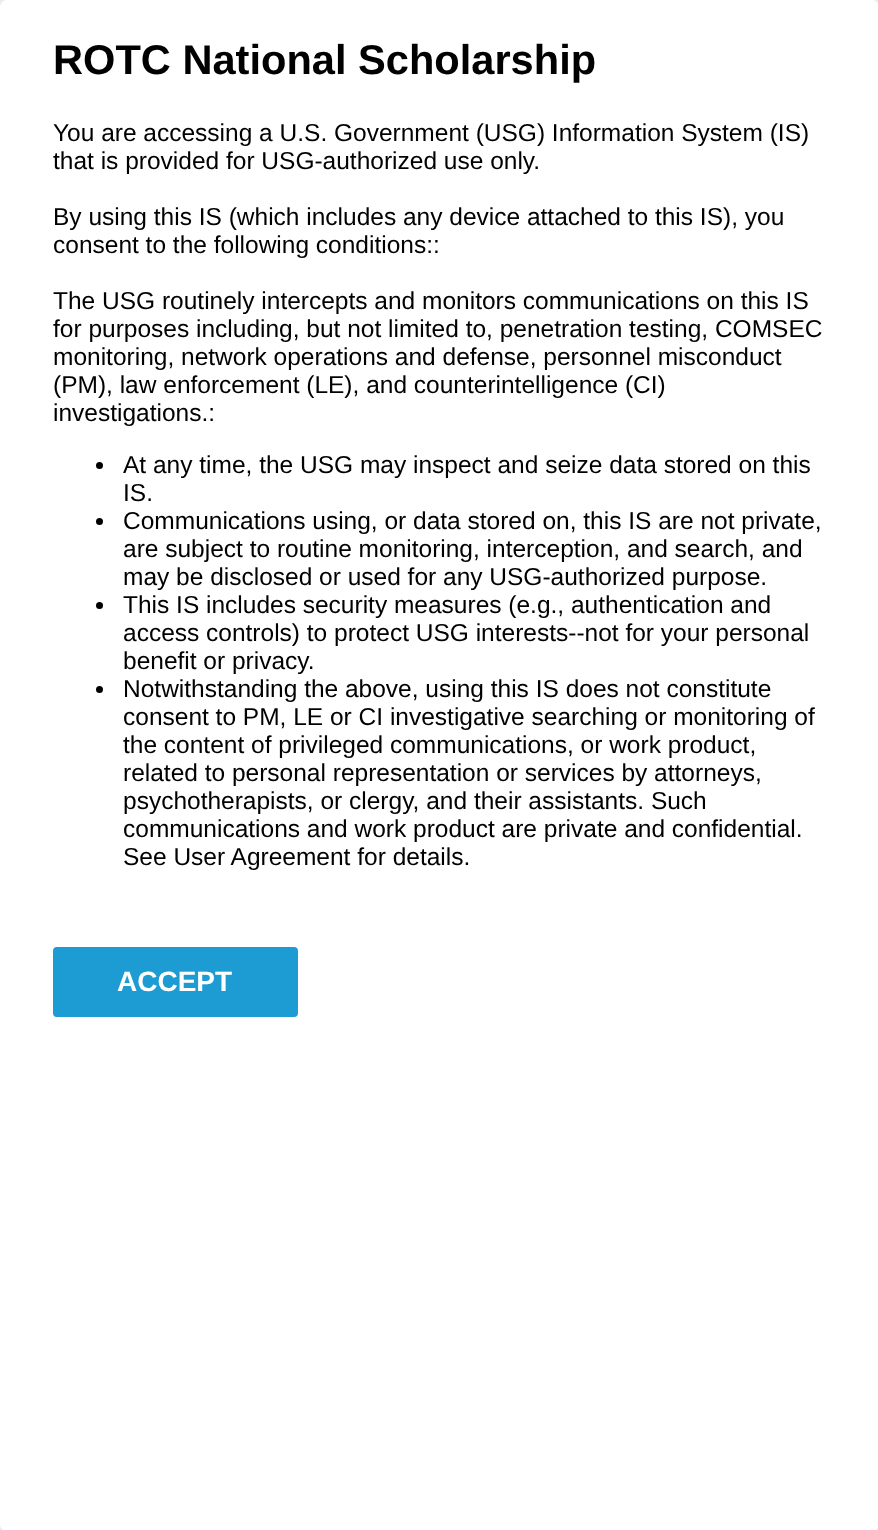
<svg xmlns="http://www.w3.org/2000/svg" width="878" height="1530">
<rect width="100%" height="100%" fill="#e9ecee"/>
<rect width="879" height="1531" rx="7" fill="#fff"/>
<text x="53" y="74" style="font-family:Liberation Sans;font-size:41.6px;font-weight:bold;fill:#000">ROTC National Scholarship</text>
<text x="53" y="141" style="font-family:Liberation Sans;font-size:24.5px;fill:#000">You are accessing a U.S. Government (USG) Information System (IS)</text>
<text x="53" y="169" style="font-family:Liberation Sans;font-size:24.5px;fill:#000">that is provided for USG-authorized use only.</text>
<text x="53" y="225" style="font-family:Liberation Sans;font-size:24.5px;fill:#000">By using this IS (which includes any device attached to this IS), you</text>
<text x="53" y="253" style="font-family:Liberation Sans;font-size:24.5px;fill:#000">consent to the following conditions::</text>
<text x="53" y="309" style="font-family:Liberation Sans;font-size:24.5px;fill:#000">The USG routinely intercepts and monitors communications on this IS</text>
<text x="53" y="337" style="font-family:Liberation Sans;font-size:24.5px;fill:#000">for purposes including, but not limited to, penetration testing, COMSEC</text>
<text x="53" y="365" style="font-family:Liberation Sans;font-size:24.5px;fill:#000">monitoring, network operations and defense, personnel misconduct</text>
<text x="53" y="393" style="font-family:Liberation Sans;font-size:24.5px;fill:#000">(PM), law enforcement (LE), and counterintelligence (CI)</text>
<text x="53" y="421" style="font-family:Liberation Sans;font-size:24.5px;fill:#000">investigations.:</text>
<circle cx="99.5" cy="465.5" r="3.5" fill="#000"/>
<text x="123" y="473" style="font-family:Liberation Sans;font-size:24.5px;fill:#000">At any time, the USG may inspect and seize data stored on this</text>
<text x="123" y="501" style="font-family:Liberation Sans;font-size:24.5px;fill:#000">IS.</text>
<circle cx="99.5" cy="521.5" r="3.5" fill="#000"/>
<text x="123" y="529" style="font-family:Liberation Sans;font-size:24.5px;fill:#000">Communications using, or data stored on, this IS are not private,</text>
<text x="123" y="557" style="font-family:Liberation Sans;font-size:24.5px;fill:#000">are subject to routine monitoring, interception, and search, and</text>
<text x="123" y="585" style="font-family:Liberation Sans;font-size:24.5px;fill:#000">may be disclosed or used for any USG-authorized purpose.</text>
<circle cx="99.5" cy="605.5" r="3.5" fill="#000"/>
<text x="123" y="613" style="font-family:Liberation Sans;font-size:24.5px;fill:#000">This IS includes security measures (e.g., authentication and</text>
<text x="123" y="641" style="font-family:Liberation Sans;font-size:24.5px;fill:#000">access controls) to protect USG interests--not for your personal</text>
<text x="123" y="669" style="font-family:Liberation Sans;font-size:24.5px;fill:#000">benefit or privacy.</text>
<circle cx="99.5" cy="689.5" r="3.5" fill="#000"/>
<text x="123" y="697" style="font-family:Liberation Sans;font-size:24.5px;fill:#000">Notwithstanding the above, using this IS does not constitute</text>
<text x="123" y="725" style="font-family:Liberation Sans;font-size:24.5px;fill:#000">consent to PM, LE or CI investigative searching or monitoring of</text>
<text x="123" y="753" style="font-family:Liberation Sans;font-size:24.5px;fill:#000">the content of privileged communications, or work product,</text>
<text x="123" y="781" style="font-family:Liberation Sans;font-size:24.5px;fill:#000">related to personal representation or services by attorneys,</text>
<text x="123" y="809" style="font-family:Liberation Sans;font-size:24.5px;fill:#000">psychotherapists, or clergy, and their assistants. Such</text>
<text x="123" y="837" style="font-family:Liberation Sans;font-size:24.5px;fill:#000">communications and work product are private and confidential.</text>
<text x="123" y="865" style="font-family:Liberation Sans;font-size:24.5px;fill:#000">See User Agreement for details.</text>
<rect x="54" y="948" width="243" height="68" rx="3" fill="#1d9cd3" stroke="#1d9cd3" stroke-width="2"/>
<text x="117" y="991" style="font-family:Liberation Sans;font-size:28px;font-weight:bold;fill:#fff">ACCEPT</text>
</svg>
